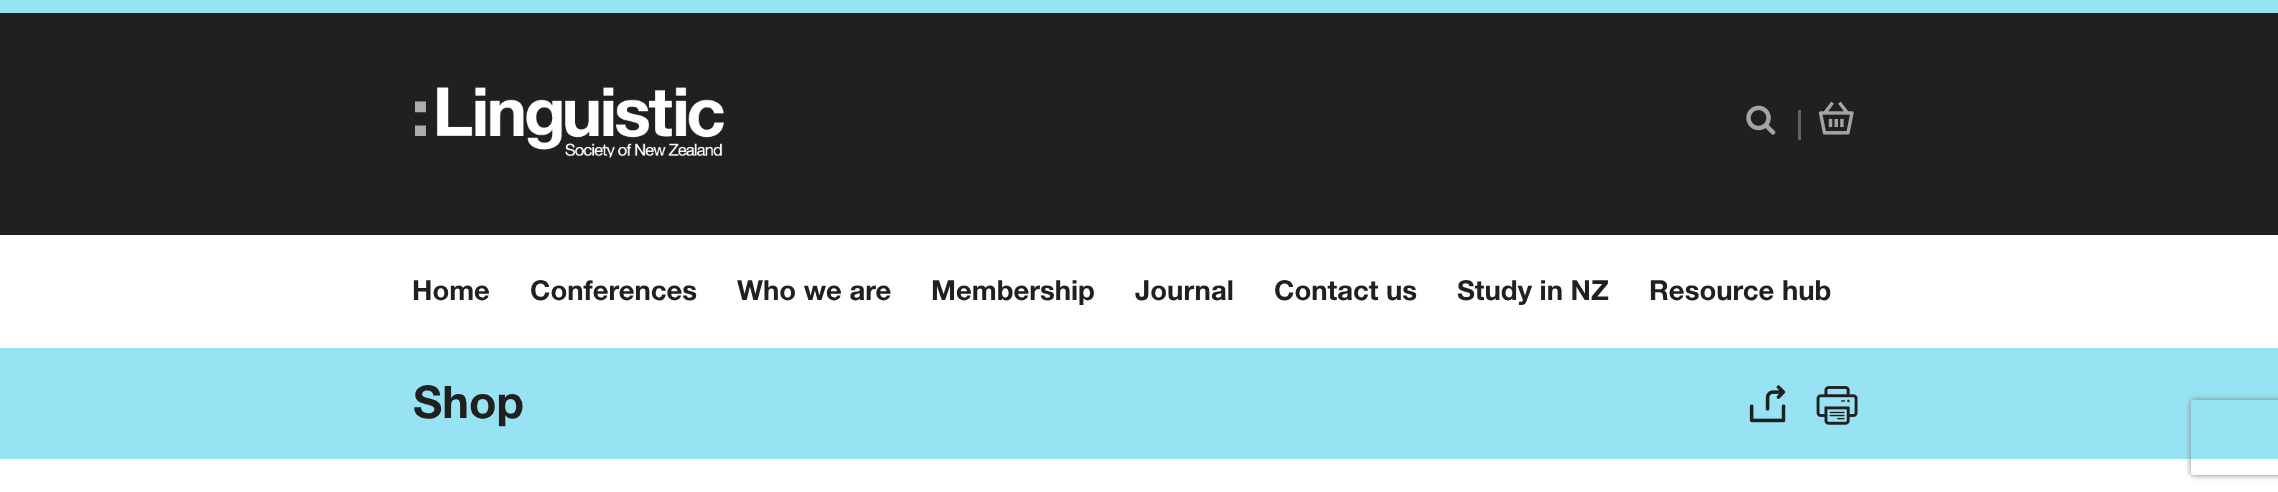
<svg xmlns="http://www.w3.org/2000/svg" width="2278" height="492">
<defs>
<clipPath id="clip1"><path d="M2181 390h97v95h-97zm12.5 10h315c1.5 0 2.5 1 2.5 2.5v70c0 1.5-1 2.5-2.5 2.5h-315c-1.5 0-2.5-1-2.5-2.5v-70c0-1.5 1-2.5 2.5-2.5z" clip-rule="evenodd"/></clipPath>
</defs>
<rect width="100%" height="100%" fill="#fff"/>
<rect y="13" width="2278" height="222" fill="#202020"/>
<rect width="2278" height="13" fill="#98e3f3"/>
<image x="415" y="87" width="309" height="71" href="media/1.png"/>
<image x="1746" y="105" width="30" height="30" href="media/2.png"/>
<rect x="1798" y="110" width="3" height="30" fill="#646464"/>
<image x="1818" y="101" width="36" height="34" href="media/3.png"/>
<text x="412" y="300" style="font-family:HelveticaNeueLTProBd;font-size:27.5px;fill:#202020">Home</text>
<text x="530" y="300" style="font-family:HelveticaNeueLTProBd;font-size:27.5px;fill:#202020">Conferences</text>
<text x="737" y="300" style="font-family:HelveticaNeueLTProBd;font-size:27.5px;fill:#202020">Who we are</text>
<text x="931" y="300" style="font-family:HelveticaNeueLTProBd;font-size:27.5px;fill:#202020">Membership</text>
<text x="1135" y="300" style="font-family:HelveticaNeueLTProBd;font-size:27.5px;fill:#202020">Journal</text>
<text x="1274" y="300" style="font-family:HelveticaNeueLTProBd;font-size:27.5px;fill:#202020">Contact us</text>
<text x="1457" y="300" style="font-family:HelveticaNeueLTProBd;font-size:27.5px;fill:#202020">Study in NZ</text>
<text x="1649" y="300" style="font-family:HelveticaNeueLTProBd;font-size:27.5px;fill:#202020">Resource hub</text>
<rect y="348" width="2278" height="111" fill="#98e3f3"/>
<text x="413" y="418" style="font-family:HelveticaNeueLTProBd;font-size:45px;fill:#202020">Shop</text>
<image x="1749" y="385" width="37" height="38" href="media/4.png"/>
<image x="1816" y="386" width="42" height="39" href="media/5.png"/>
<g clip-path="url(#clip1)">
<rect x="2191" y="400" width="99" height="75" rx="2.5" fill="#808080" filter="blur(3px)"/>
</g>
</svg>
